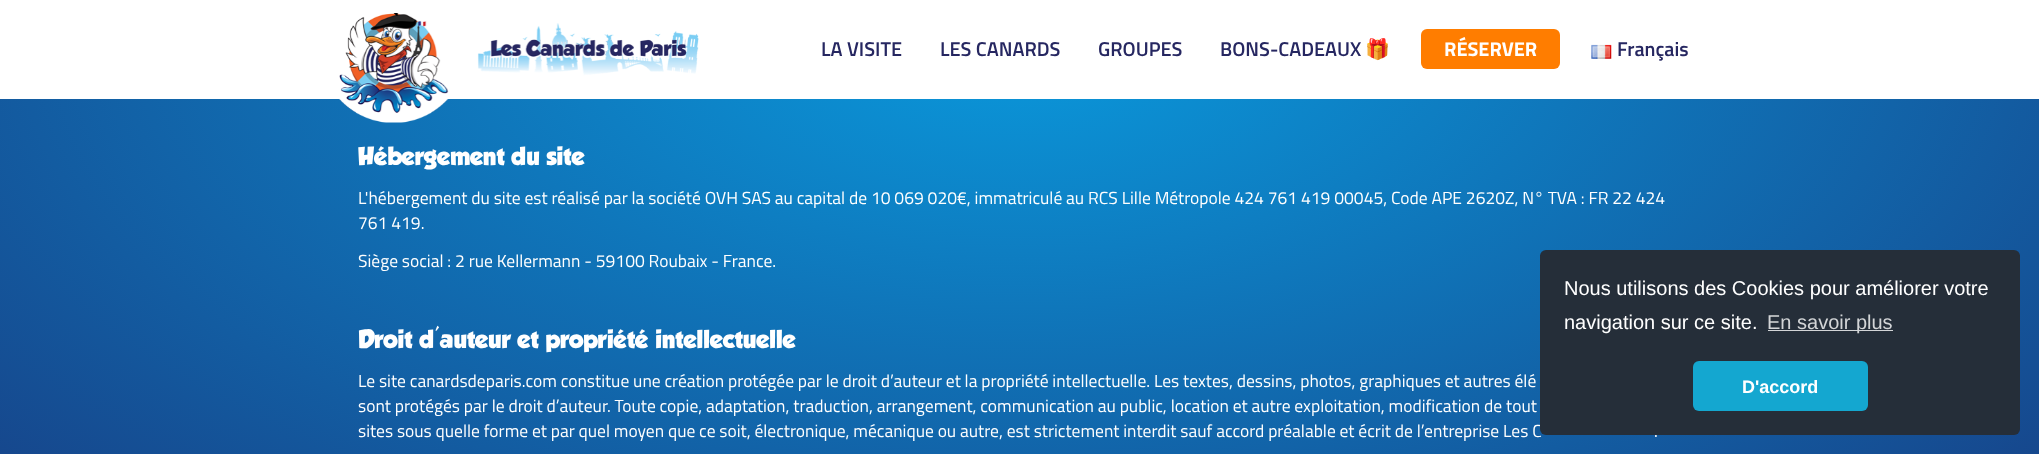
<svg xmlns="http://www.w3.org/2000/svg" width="2039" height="454">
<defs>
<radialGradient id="g1" gradientUnits="userSpaceOnUse" cx="0" cy="0" r="1" gradientTransform="matrix(1442 0 0 702 1020 36)"><stop offset="0" stop-color="#0a99dc"/><stop offset="1" stop-color="#174187"/></radialGradient>
</defs>
<rect width="100%" height="100%" fill="#fff"/>
<rect y="99" width="2039" height="355" fill="url(#g1)"/>
<image x="339" y="13" width="360" height="110" href="media/1.png"/>
<text x="821" y="56" style="font-family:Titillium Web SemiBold;font-size:20px;font-weight:600;fill:#262761">LA VISITE</text>
<text x="940" y="56" style="font-family:Titillium Web SemiBold;font-size:20px;font-weight:600;fill:#262761">LES CANARDS</text>
<text x="1098" y="56" style="font-family:Titillium Web SemiBold;font-size:20px;font-weight:600;fill:#262761">GROUPES</text>
<text x="1220" y="56" style="font-family:Titillium Web SemiBold;font-size:20px;font-weight:600;fill:#262761">BONS-CADEAUX</text>
<text x="1365" y="56" style="font-family:Noto Color Emoji;font-size:20px;font-weight:bold;fill:#262761">🎁</text>
<rect x="1421" y="29" width="139" height="40" rx="6" fill="#ff7d00"/>
<text x="1444" y="56" style="font-family:Titillium Web;font-size:20px;font-weight:bold;fill:#fff">RÉSERVER</text>
<image x="1591" y="44" width="21" height="15" href="media/2.png"/>
<text x="1617" y="56" style="font-family:Titillium Web SemiBold;font-size:20px;font-weight:600;fill:#262761">Français</text>
<text x="358" y="165" style="font-family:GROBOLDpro;font-size:22.5px;font-weight:bold;fill:#fff">Hébergement du site</text>
<text x="358" y="204" style="font-family:Titillium Web;font-size:17.5px;fill:#fff">L'hébergement du site est réalisé par la société OVH SAS au capital de 10 069 020€, immatriculé au RCS Lille Métropole 424 761 419 00045, Code APE 2620Z, N° TVA : FR 22 424</text>
<text x="358" y="229" style="font-family:Titillium Web;font-size:17.5px;fill:#fff">761 419.</text>
<text x="358" y="267" style="font-family:Titillium Web;font-size:17.5px;fill:#fff">Siège social : 2 rue Kellermann - 59100 Roubaix - France.</text>
<text x="358" y="348" style="font-family:GROBOLDpro;font-size:22.5px;font-weight:bold;fill:#fff">Droit d'auteur et propriété intellectuelle</text>
<text x="358" y="387" style="font-family:Titillium Web;font-size:17.5px;fill:#fff">Le site canardsdeparis.com constitue une création protégée par le droit d’auteur et la propriété intellectuelle. Les textes, dessins, photos, graphiques et autres élé</text>
<text x="358" y="412" style="font-family:Titillium Web;font-size:17.5px;fill:#fff">sont protégés par le droit d’auteur. Toute copie, adaptation, traduction, arrangement, communication au public, location et autre exploitation, modification de tout</text>
<text x="358" y="437" style="font-family:Titillium Web;font-size:17.5px;fill:#fff">sites sous quelle forme et par quel moyen que ce soit, électronique, mécanique ou autre, est strictement interdit sauf accord préalable et écrit de l’entreprise Les C</text>
<text x="1654" y="437" style="font-family:Titillium Web;font-size:17.5px;fill:#fff">.</text>
<rect x="1540" y="250" width="480" height="185" rx="6" fill="#252e39"/>
<text x="1564" y="295" style="font-family:Liberation Sans;font-size:20px;fill:#fff">Nous utilisons des Cookies pour améliorer votre</text>
<text x="1564" y="329" style="font-family:Liberation Sans;font-size:20px;fill:#fff">navigation sur ce site.</text>
<rect x="1768" y="330" width="125" height="1" fill="#d3d5d7"/>
<text x="1767" y="329" style="font-family:Liberation Sans;font-size:20px;fill:#d3d5d7">En savoir plus</text>
<rect x="1693" y="361" width="175" height="50" rx="6" fill="#14a7d0"/>
<text x="1742" y="393" style="font-family:Liberation Sans;font-size:18px;font-weight:bold;fill:#fff">D'accord</text>
</svg>
